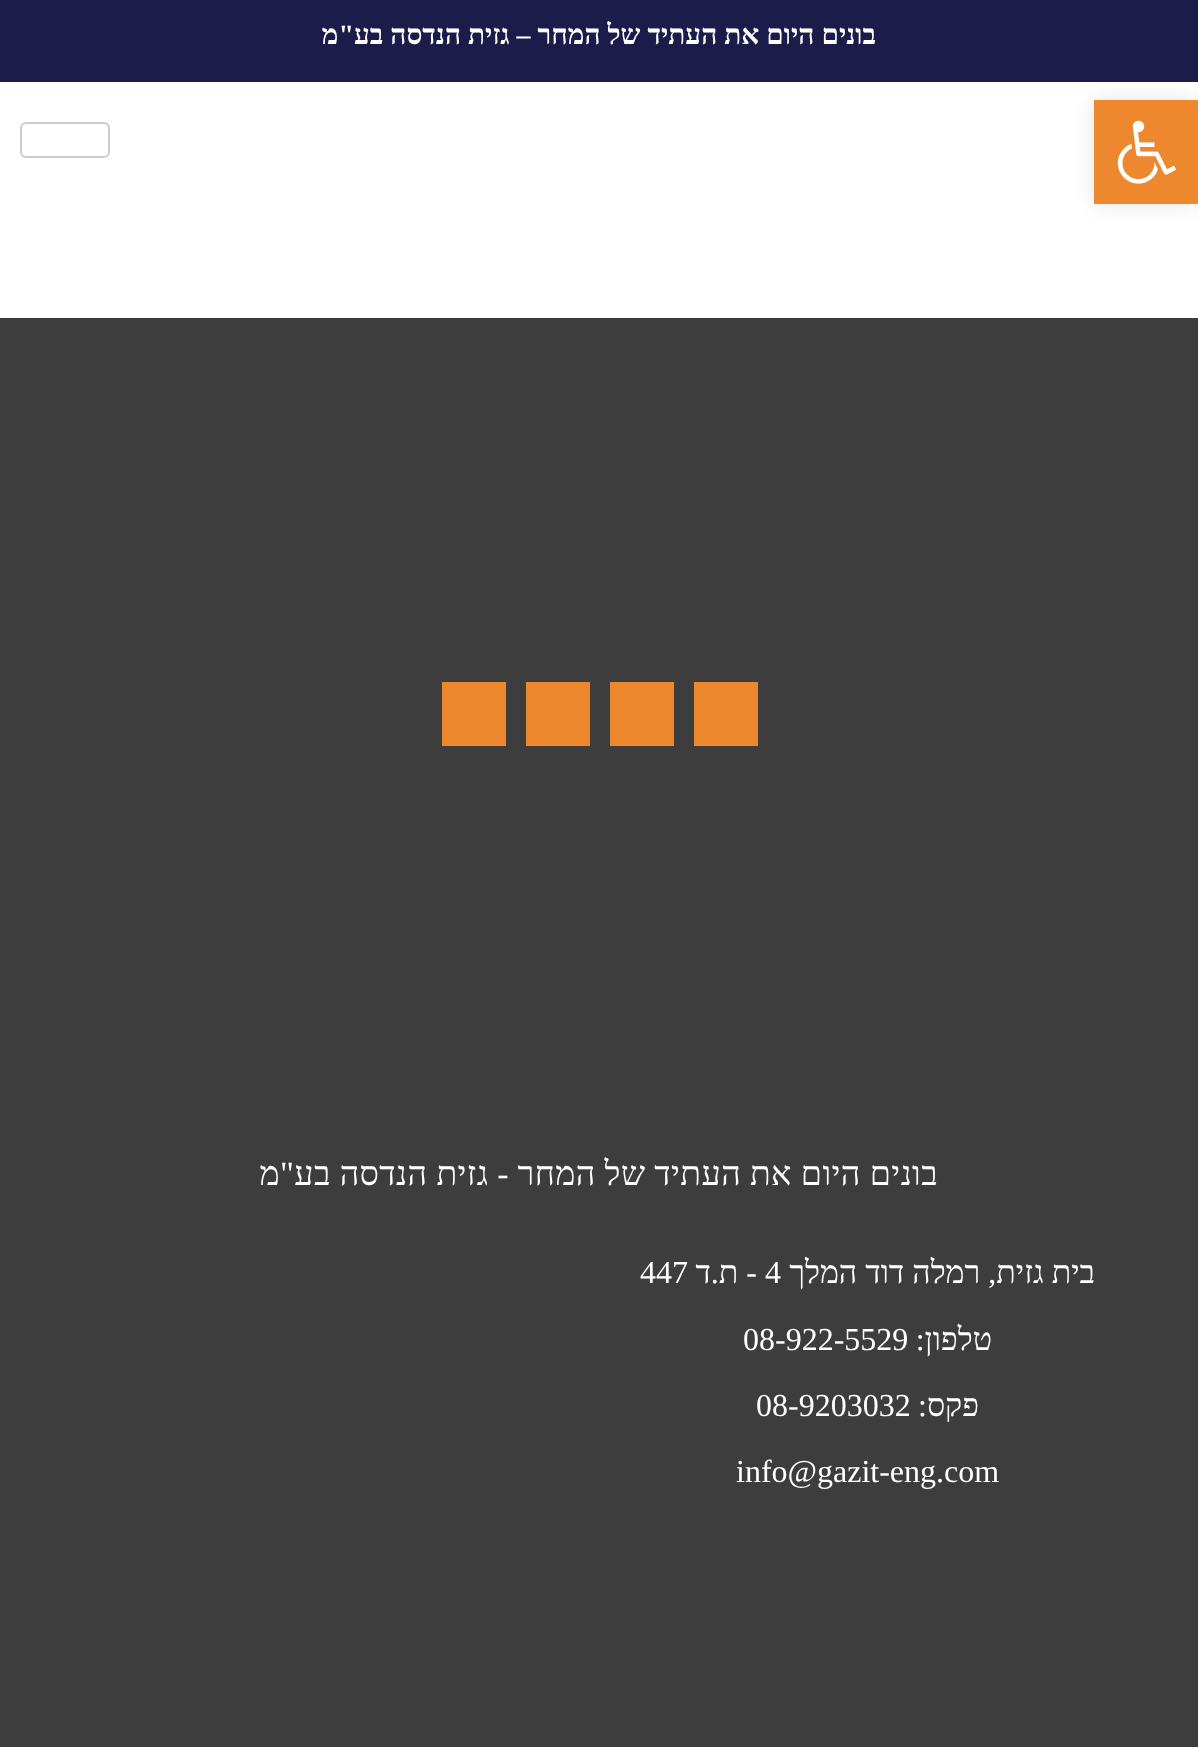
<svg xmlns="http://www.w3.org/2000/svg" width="1198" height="1747">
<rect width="100%" height="100%" fill="#fff"/>
<rect width="1198" height="82" fill="#1c1c4b"/>
<rect x="1094" y="100" width="104" height="104" fill="#0000001a" filter="blur(10px)"/>
<rect x="1094" y="100" width="104" height="104" fill="#ee882f"/>
<image x="1117" y="120" width="59" height="64" href="media/1.png"/>
<text x="876" y="44" style="font-family:Liberation Serif;font-size:28px;font-weight:bold;direction:rtl;fill:#fff">בונים היום את העתיד של המחר – גזית הנדסה בע"מ</text>
<rect x="21" y="123" width="88" height="34" rx="5" fill="none" stroke="#ccc" stroke-width="2"/>
<rect y="318" width="1198" height="1429" fill="#3d3d3d"/>
<rect x="694" y="682" width="64" height="64" fill="#ee882f"/>
<rect x="610" y="682" width="64" height="64" fill="#ee882f"/>
<rect x="526" y="682" width="64" height="64" fill="#ee882f"/>
<rect x="442" y="682" width="64" height="64" fill="#ee882f"/>
<text x="938" y="1185" style="font-family:Liberation Serif;font-size:34px;letter-spacing:0.4px;direction:rtl;fill:#fff">בונים היום את העתיד של המחר</text>
<text x="509" y="1185" style="font-family:Liberation Serif;font-size:34px;letter-spacing:0.4px;direction:rtl;fill:#fff">- גזית הנדסה בע"מ</text>
<text x="1095" y="1283" style="font-family:Liberation Serif;font-size:32px;direction:rtl;fill:#fff">בית גזית, רמלה דוד המלך</text>
<text x="765" y="1283" style="font-family:Liberation Serif;font-size:32px;fill:#fff">4</text>
<text x="757" y="1283" style="font-family:Liberation Serif;font-size:32px;direction:rtl;fill:#fff">- ת.ד</text>
<text x="640" y="1283" style="font-family:Liberation Serif;font-size:32px;fill:#fff">447</text>
<text x="992" y="1350" style="font-family:Liberation Serif;font-size:32px;direction:rtl;fill:#fff">טלפון:</text>
<text x="743" y="1350" style="font-family:Liberation Serif;font-size:32px;fill:#fff">08-922-5529</text>
<text x="979" y="1416" style="font-family:Liberation Serif;font-size:32px;direction:rtl;fill:#fff">פקס:</text>
<text x="756" y="1416" style="font-family:Liberation Serif;font-size:32px;fill:#fff">08-9203032</text>
<text x="736" y="1482" style="font-family:Liberation Serif;font-size:32px;fill:#fff">info@gazit-eng.com</text>
</svg>
